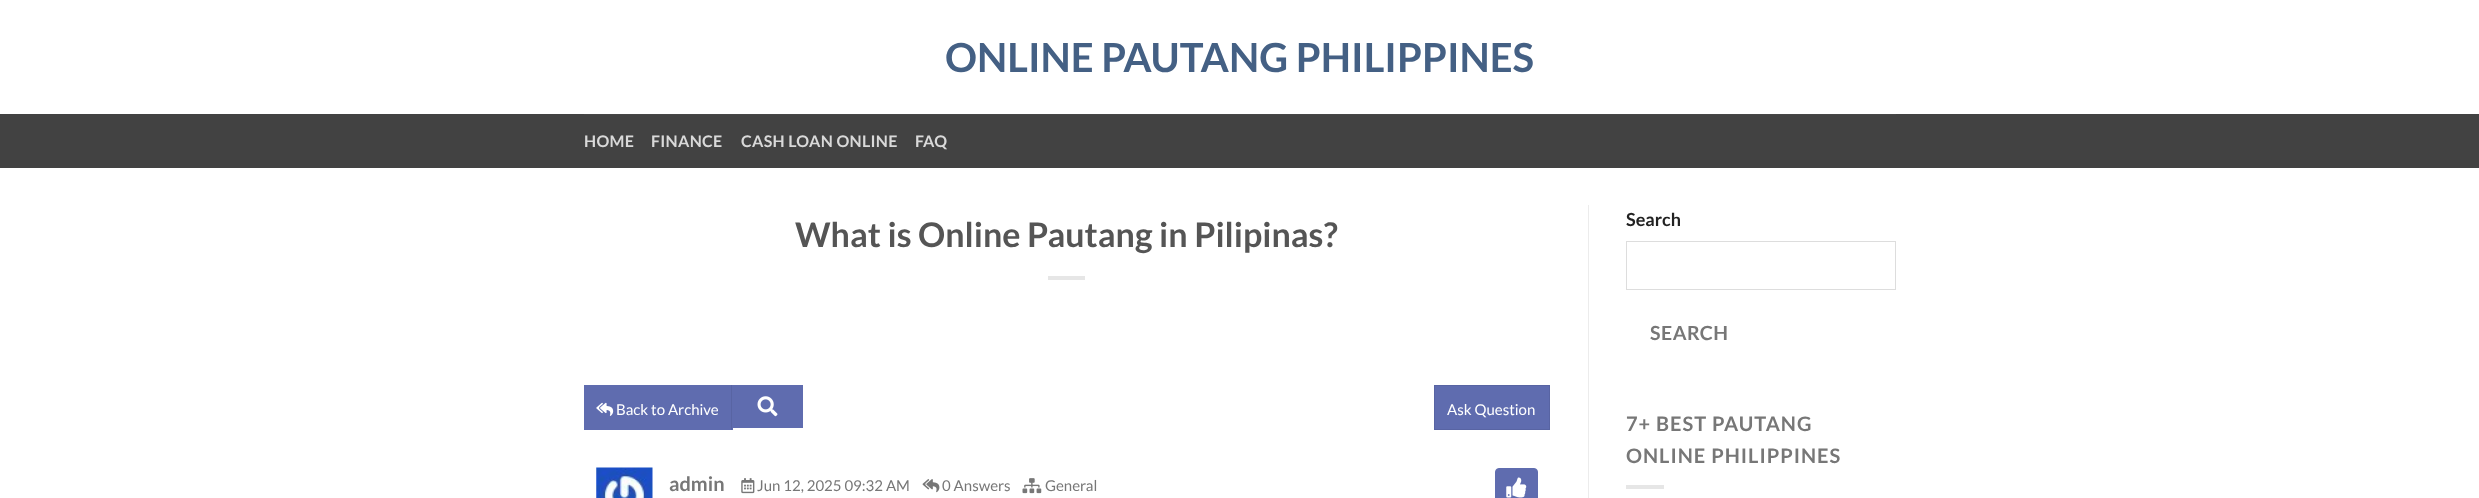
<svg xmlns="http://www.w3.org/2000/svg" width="2479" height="498">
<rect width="100%" height="100%" fill="#fff"/>
<text x="945" y="72" style="font-family:Lato;font-size:40px;font-weight:bold;fill:#446084">ONLINE PAUTANG PHILIPPINES</text>
<rect y="114" width="2479" height="54" fill="#424242"/>
<rect x="584" y="114" width="1312" height="1" fill="#474747"/>
<text x="584" y="147" style="font-family:Lato;font-size:16px;font-weight:bold;letter-spacing:0.3px;fill:#d9d9d9">HOME</text>
<text x="651" y="147" style="font-family:Lato;font-size:16px;font-weight:bold;letter-spacing:0.3px;fill:#d9d9d9">FINANCE</text>
<text x="741" y="147" style="font-family:Lato;font-size:16px;font-weight:bold;letter-spacing:0.3px;fill:#d9d9d9">CASH LOAN ONLINE</text>
<text x="915" y="147" style="font-family:Lato;font-size:16px;font-weight:bold;letter-spacing:0.3px;fill:#d9d9d9">FAQ</text>
<text x="795" y="247" style="font-family:Lato;font-size:34px;font-weight:bold;fill:#555">What is Online Pautang in Pilipinas?</text>
<rect x="1048" y="276" width="37" height="4" fill="#e6e6e6"/>
<rect x="584" y="385" width="149" height="45" fill="#5f6caf"/>
<rect x="731" y="385" width="1" height="45" fill="#5864a3"/>
<image x="596" y="402" width="18" height="14" href="media/1.png"/>
<text x="616" y="415" style="font-family:Lato;font-size:15px;fill:#fff">Back to Archive</text>
<rect x="733" y="385" width="70" height="43" fill="#5f6caf"/>
<image x="757" y="396" width="21" height="21" href="media/2.png"/>
<rect x="1434.5" y="385.5" width="115" height="44" fill="#5f6caf" stroke="#5864a3"/>
<text x="1447" y="415" style="font-family:Lato;font-size:15px;fill:#fff">Ask Question</text>
<image x="596" y="467" width="57" height="31" href="media/3.png"/>
<text x="669" y="491" style="font-family:Lato;font-size:20px;font-weight:bold;fill:#777">admin</text>
<image x="741" y="478" width="14" height="16" href="media/4.png"/>
<text x="757" y="491" style="font-family:Lato;font-size:15px;fill:#777">Jun 12, 2025 09:32 AM</text>
<image x="922" y="479" width="18" height="14" href="media/5.png"/>
<text x="942" y="491" style="font-family:Lato;font-size:15px;fill:#777">0 Answers</text>
<image x="1022" y="478" width="20" height="16" href="media/6.png"/>
<text x="1045" y="491" style="font-family:Lato;font-size:15px;fill:#777">General</text>
<rect x="1495.5" y="468.5" width="42" height="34" rx="3.5" fill="#5f6caf" stroke="#5f6caf"/>
<image x="1506" y="477" width="21" height="21" href="media/7.png"/>
<rect x="1588" y="205" width="1" height="293" fill="#ececec"/>
<text x="1626" y="226" style="font-family:Lato;font-size:18px;font-weight:bold;fill:#222">Search</text>
<rect x="1626.5" y="241.5" width="269" height="48" fill="none" stroke="#ddd"/>
<text x="1650" y="340" style="font-family:Lato;font-size:19.5px;font-weight:bold;letter-spacing:0.5px;fill:#777">SEARCH</text>
<text x="1626" y="431" style="font-family:Lato;font-size:20px;font-weight:bold;letter-spacing:1px;fill:#777">7+ BEST PAUTANG</text>
<text x="1626" y="463" style="font-family:Lato;font-size:20px;font-weight:bold;letter-spacing:1px;fill:#777">ONLINE PHILIPPINES</text>
<rect x="1626" y="485" width="38" height="4" fill="#e6e6e6"/>
</svg>
